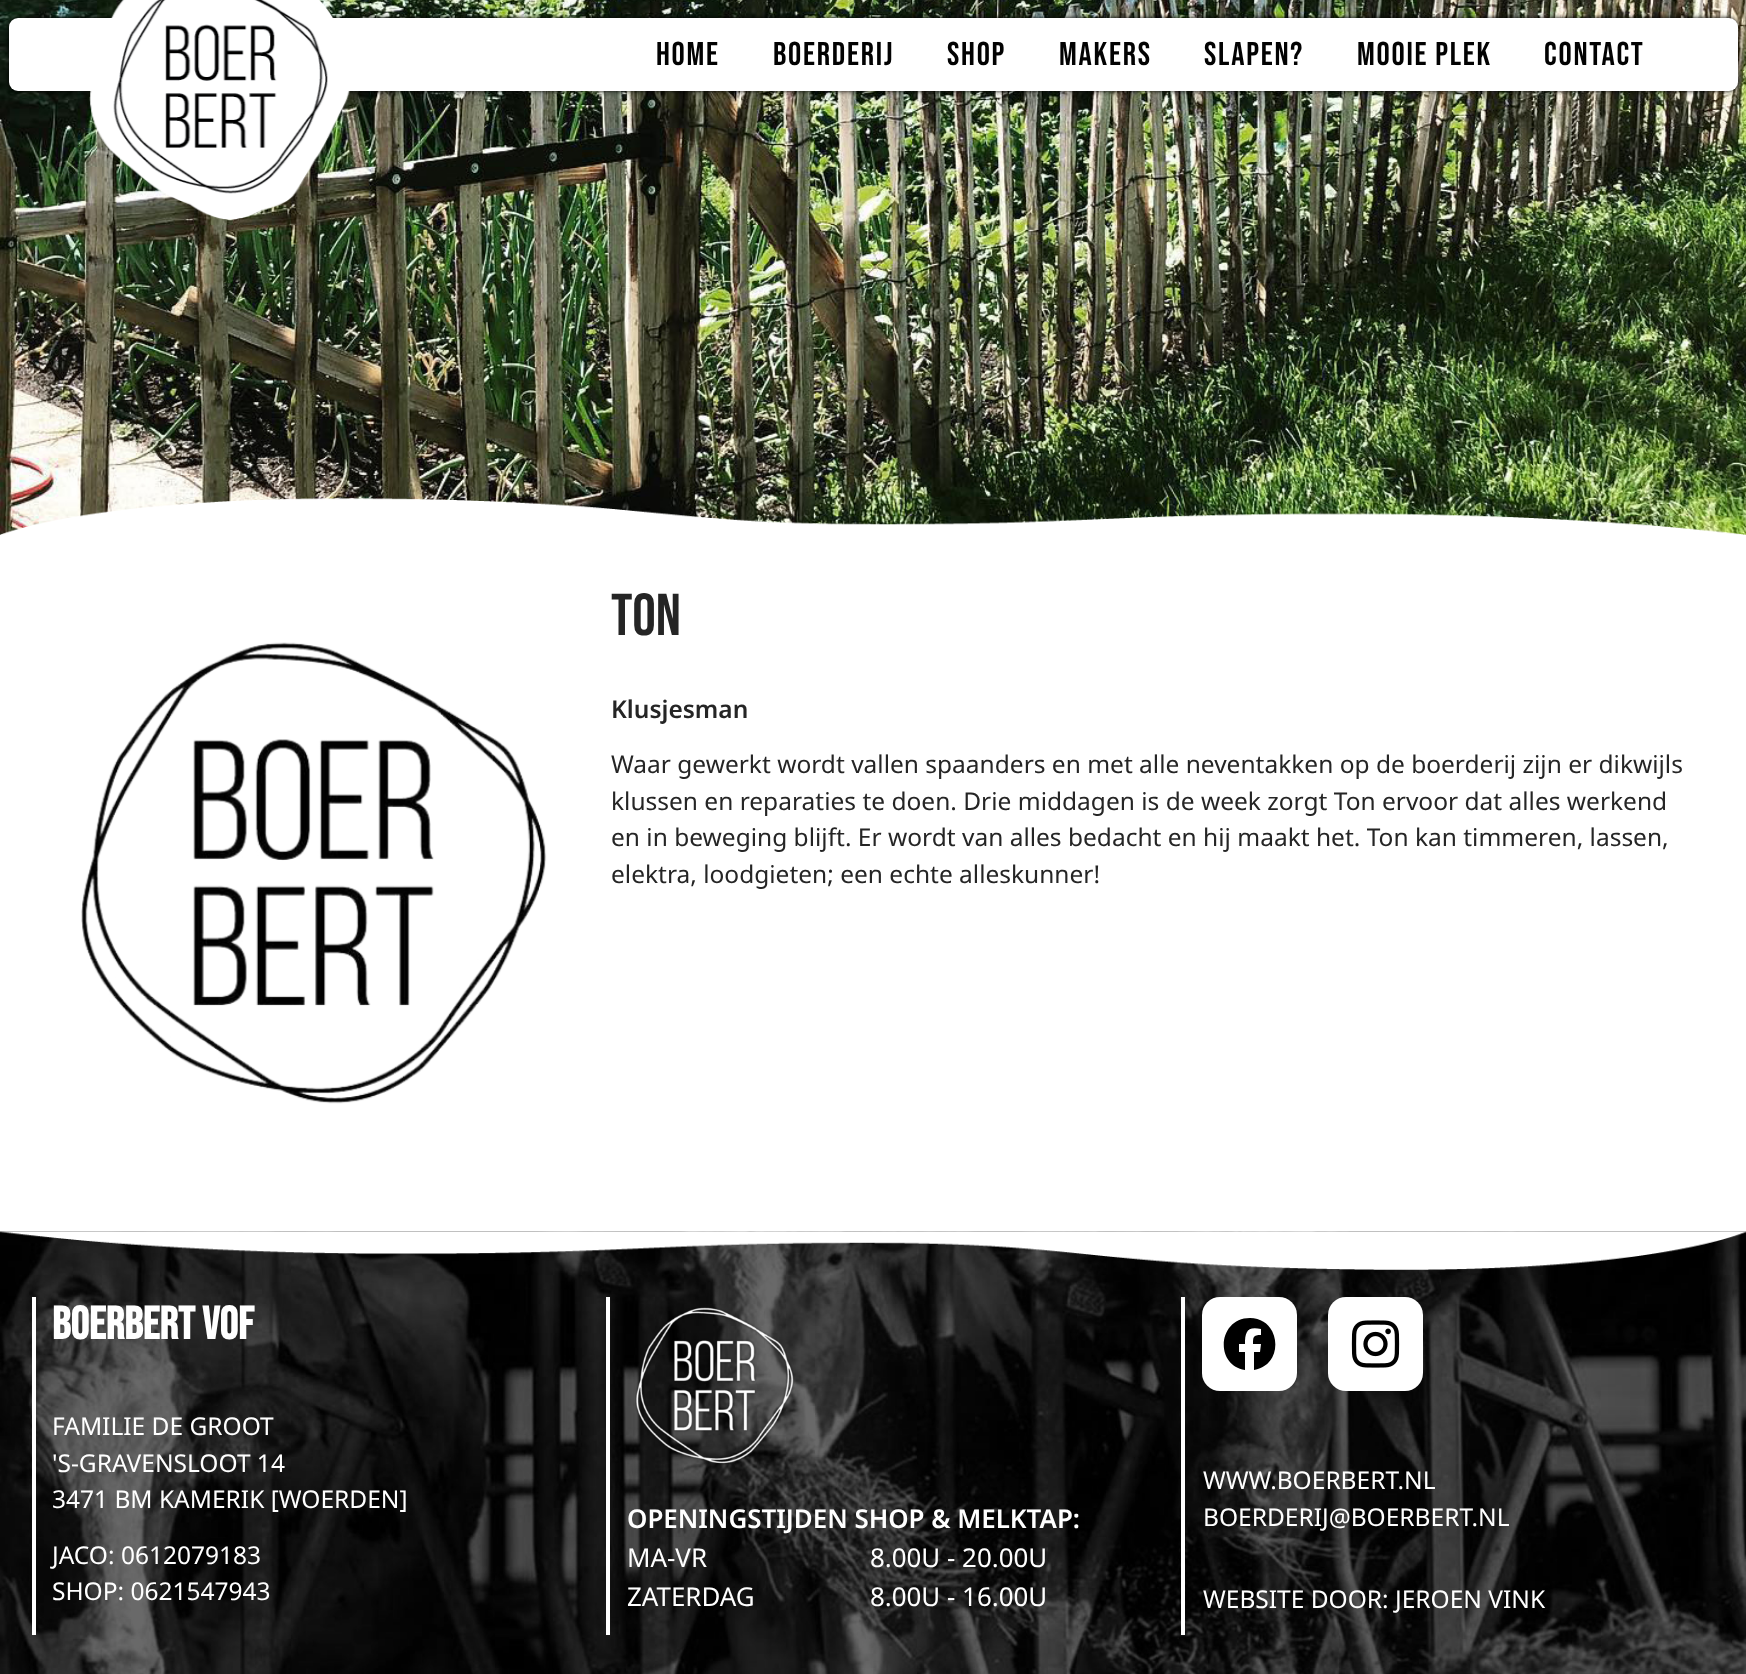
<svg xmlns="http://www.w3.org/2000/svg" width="1746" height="1674">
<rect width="100%" height="100%" fill="#fff"/>
<image x="0" y="0" width="1746" height="535" href="media/1.png"/>
<image x="0" y="498" width="1746" height="37" href="media/2.png"/>
<rect x="9" y="18" width="1729" height="73" rx="9" fill="#000" filter="blur(2.5px)"/>
<rect x="9" y="18" width="1729" height="73" rx="9" fill="#fff"/>
<image x="89" y="0" width="262" height="220" href="media/3.png"/>
<text x="656" y="65" style="font-family:Bebas Neue;font-size:33px;letter-spacing:1.75px;fill:#020202">HOME</text>
<text x="773" y="65" style="font-family:Bebas Neue;font-size:33px;letter-spacing:1.75px;fill:#020202">BOERDERIJ</text>
<text x="947" y="65" style="font-family:Bebas Neue;font-size:33px;letter-spacing:1.75px;fill:#020202">SHOP</text>
<text x="1059" y="65" style="font-family:Bebas Neue;font-size:33px;letter-spacing:1.75px;fill:#020202">MAKERS</text>
<text x="1204" y="65" style="font-family:Bebas Neue;font-size:33px;letter-spacing:1.75px;fill:#020202">SLAPEN?</text>
<text x="1357" y="65" style="font-family:Bebas Neue;font-size:33px;letter-spacing:1.75px;fill:#020202">MOOIE PLEK</text>
<text x="1544" y="65" style="font-family:Bebas Neue;font-size:33px;letter-spacing:1.75px;fill:#020202">CONTACT</text>
<image x="81" y="642" width="466" height="462" href="media/4.png"/>
<text x="611" y="635" style="font-family:Bebas Neue;font-size:59px;fill:#252525">Ton</text>
<text x="611" y="718" style="font-family:Noto Sans;font-size:24.5px;font-weight:600;fill:#252525">Klusjesman</text>
<text x="611" y="773" style="font-family:Noto Sans;font-size:24.5px;fill:#252525">Waar gewerkt wordt vallen spaanders en met alle neventakken op de boerderij zijn er dikwijls</text>
<text x="611" y="810" style="font-family:Noto Sans;font-size:24.5px;fill:#252525">klussen en reparaties te doen. Drie middagen is de week zorgt Ton ervoor dat alles werkend</text>
<text x="611" y="846" style="font-family:Noto Sans;font-size:24.5px;fill:#252525">en in beweging blijft. Er wordt van alles bedacht en hij maakt het. Ton kan timmeren, lassen,</text>
<text x="611" y="883" style="font-family:Noto Sans;font-size:24.5px;fill:#252525">elektra, loodgieten; een echte alleskunner!</text>
<image x="0" y="1231" width="1746" height="443" href="media/5.png"/>
<rect x="32" y="1297" width="4" height="338" fill="#fff"/>
<text x="52" y="1339" style="font-family:Bebas Neue;font-size:46px;font-weight:bold;fill:#fff">BoerBert VOF</text>
<text x="52" y="1435" style="font-family:Noto Sans;font-size:24.5px;fill:#fff">FAMILIE DE GROOT</text>
<text x="52" y="1472" style="font-family:Noto Sans;font-size:24.5px;fill:#fff">'S-GRAVENSLOOT 14</text>
<text x="52" y="1508" style="font-family:Noto Sans;font-size:24.5px;fill:#fff">3471 BM KAMERIK [WOERDEN]</text>
<text x="52" y="1564" style="font-family:Noto Sans;font-size:24.5px;fill:#fff">JACO: 0612079183</text>
<text x="52" y="1600" style="font-family:Noto Sans;font-size:24.5px;fill:#fff">SHOP: 0621547943</text>
<rect x="606" y="1297" width="4" height="338" fill="#fff"/>
<image x="635" y="1307" width="160" height="158" href="media/6.png"/>
<text x="627" y="1528" style="font-family:Noto Sans;font-size:25.9px;font-weight:600;fill:#fff">OPENINGSTIJDEN SHOP &amp; MELKTAP:</text>
<text x="627" y="1567" style="font-family:Noto Sans;font-size:25.9px;fill:#fff">MA-VR</text>
<text x="870" y="1567" style="font-family:Noto Sans;font-size:25.9px;fill:#fff">8.00U - 20.00U</text>
<text x="627" y="1606" style="font-family:Noto Sans;font-size:25.9px;fill:#fff">ZATERDAG</text>
<text x="870" y="1606" style="font-family:Noto Sans;font-size:25.9px;fill:#fff">8.00U - 16.00U</text>
<rect x="1181" y="1297" width="4" height="338" fill="#fff"/>
<rect x="1202" y="1297" width="95" height="94" rx="18" fill="#fff"/>
<path d="M1250 1318c-32 0-36 47-5 52v-18h-6v-8h6c0-12 2-18 16-15v6c-8 0-8 2-8 9h8l-1 8h-6v18c31-5 27-52-4-52z" fill="#000"/>
<rect x="1328" y="1297" width="95" height="94" rx="18" fill="#fff"/>
<image x="1351" y="1320" width="49" height="48" href="media/7.png"/>
<text x="1203" y="1489" style="font-family:Noto Sans;font-size:24.5px;fill:#fff">WWW.BOERBERT.NL</text>
<text x="1203" y="1526" style="font-family:Noto Sans;font-size:24.5px;fill:#fff">BOERDERIJ@BOERBERT.NL</text>
<text x="1203" y="1608" style="font-family:Noto Sans;font-size:24.5px;fill:#fff">WEBSITE DOOR: JEROEN VINK</text>
</svg>
